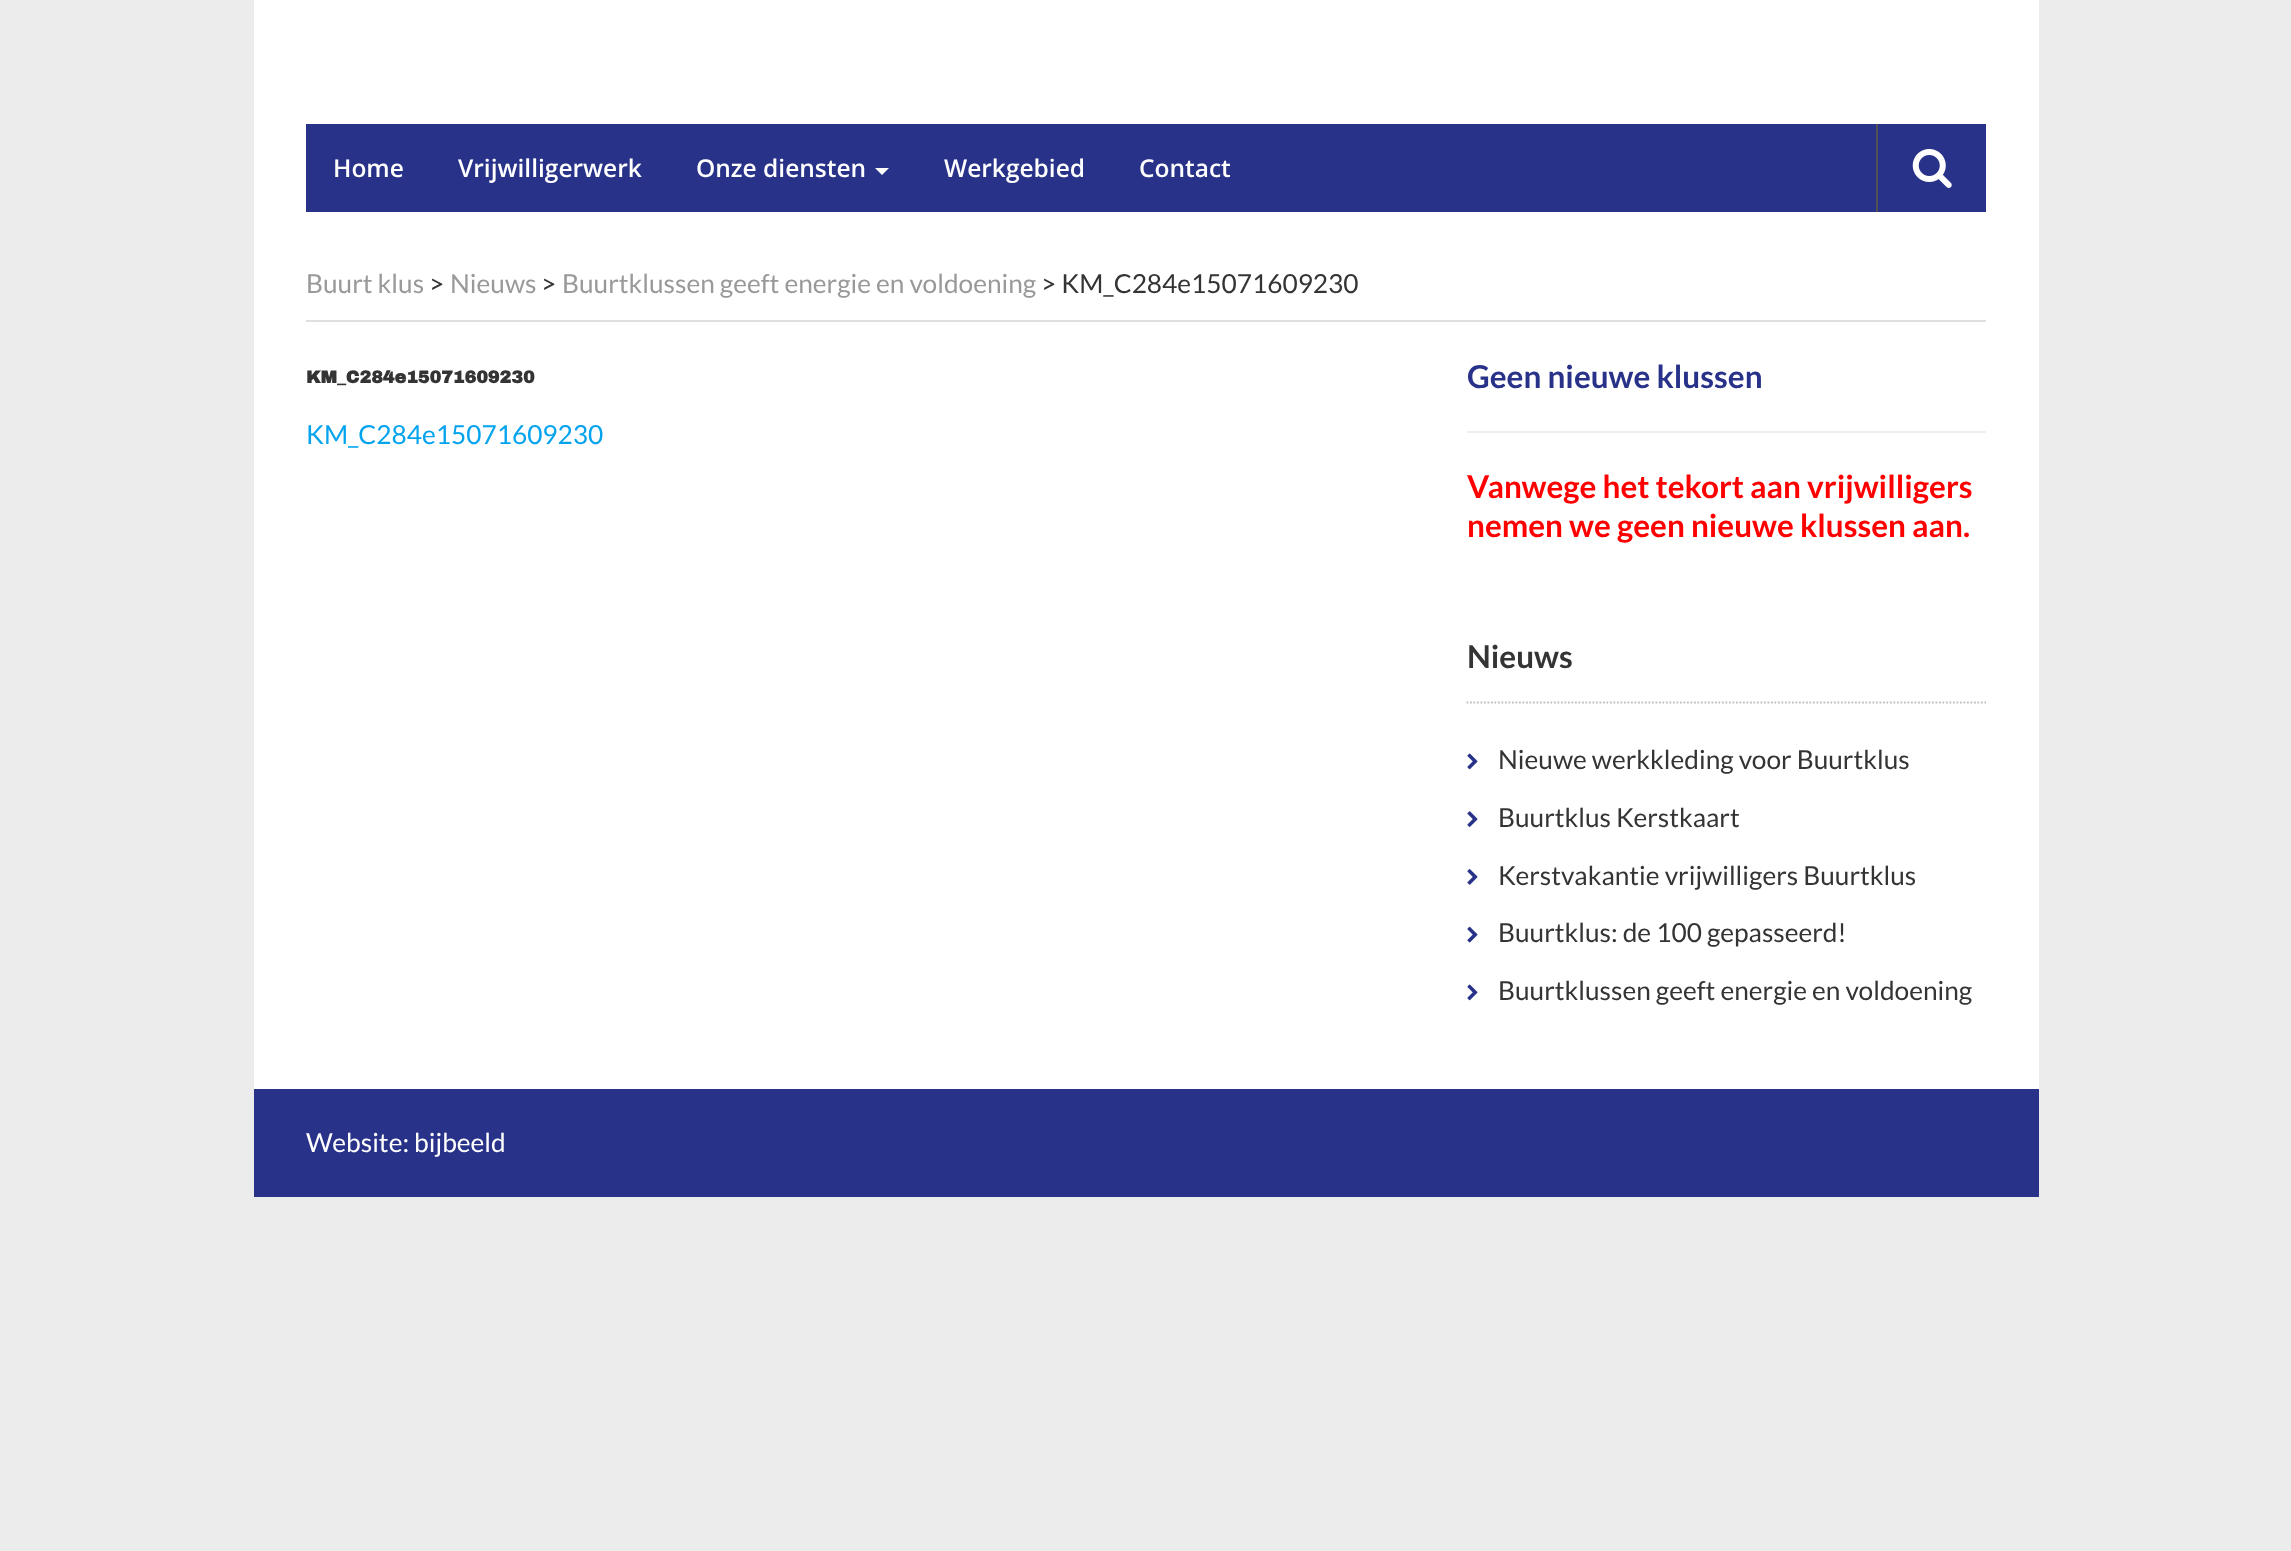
<svg xmlns="http://www.w3.org/2000/svg" width="2291" height="1551">
<rect width="100%" height="100%" fill="#ececec"/>
<rect x="254" width="1785" height="1089" fill="#fff"/>
<rect x="306" y="124" width="1680" height="88" fill="#283289"/>
<text x="333" y="177" style="font-family:Open Sans;font-size:24.5px;font-weight:600;fill:#fff">Home</text>
<text x="458" y="177" style="font-family:Open Sans;font-size:24.5px;font-weight:600;fill:#fff">Vrijwilligerwerk</text>
<text x="696" y="177" style="font-family:Open Sans;font-size:24.5px;font-weight:600;fill:#fff">Onze diensten</text>
<path d="M875 168h14l-7 7z" fill="#fff"/>
<text x="944" y="177" style="font-family:Open Sans;font-size:24.5px;font-weight:600;fill:#fff">Werkgebied</text>
<text x="1139" y="177" style="font-family:Open Sans;font-size:24.5px;font-weight:600;fill:#fff">Contact</text>
<rect x="1876" y="124" width="2" height="88" fill="#515151"/>
<image x="1912" y="149" width="40" height="39" href="media/1.png"/>
<rect x="306" y="320" width="1680" height="2" fill="#dfdfdf"/>
<text x="306" y="293" style="font-family:Lato;font-size:26.25px;fill:#999">Buurt klus</text>
<text x="429" y="293" style="font-family:Lato;font-size:26.25px;fill:#343434">&gt;</text>
<text x="450" y="293" style="font-family:Lato;font-size:26.25px;fill:#999">Nieuws</text>
<text x="541" y="293" style="font-family:Lato;font-size:26.25px;fill:#343434">&gt;</text>
<text x="562" y="293" style="font-family:Lato;font-size:26.25px;fill:#999">Buurtklussen geeft energie en voldoening</text>
<text x="1041" y="293" style="font-family:Lato;font-size:26.25px;fill:#343434">&gt; KM_C284e15071609230</text>
<text x="306" y="383" style="font-family:Archivo Black;font-size:17.5px;font-weight:bold;fill:#343434">KM_C284e15071609230</text>
<text x="306" y="444" style="font-family:Lato;font-size:26.25px;fill:#03a3ee">KM_C284e15071609230</text>
<text x="1467" y="388" style="font-family:Lato;font-size:31.5px;font-weight:bold;fill:#283289">Geen nieuwe klussen</text>
<rect x="1467" y="431" width="519" height="2" fill="#eee"/>
<text x="1467" y="498" style="font-family:Lato;font-size:31.5px;font-weight:bold;fill:#f00">Vanwege het tekort aan vrijwilligers</text>
<text x="1467" y="537" style="font-family:Lato;font-size:31.5px;font-weight:bold;fill:#f00">nemen we geen nieuwe klussen aan.</text>
<path d="M1466.5 702.5h519.5" fill="none" stroke="#bfbfbf" stroke-width="1.8" stroke-dasharray="1.75 1.75"/>
<text x="1467" y="668" style="font-family:Lato;font-size:31.5px;font-weight:bold;fill:#343434">Nieuws</text>
<image x="1467" y="753" width="11" height="17" href="media/2.png"/>
<text x="1498" y="769" style="font-family:Lato;font-size:26.25px;fill:#343434">Nieuwe werkkleding voor Buurtklus</text>
<image x="1467" y="811" width="11" height="16" href="media/3.png"/>
<text x="1498" y="827" style="font-family:Lato;font-size:26.25px;fill:#343434">Buurtklus Kerstkaart</text>
<image x="1467" y="869" width="11" height="16" href="media/4.png"/>
<text x="1498" y="885" style="font-family:Lato;font-size:26.25px;fill:#343434">Kerstvakantie vrijwilligers Buurtklus</text>
<image x="1467" y="926" width="11" height="17" href="media/5.png"/>
<text x="1498" y="942" style="font-family:Lato;font-size:26.25px;fill:#343434">Buurtklus: de 100 gepasseerd!</text>
<image x="1467" y="984" width="11" height="17" href="media/6.png"/>
<text x="1498" y="1000" style="font-family:Lato;font-size:26.25px;fill:#343434">Buurtklussen geeft energie en voldoening</text>
<rect x="254" y="1089" width="1785" height="108" fill="#283289"/>
<text x="306" y="1152" style="font-family:Lato;font-size:26.25px;fill:#fff">Website: bijbeeld</text>
</svg>
